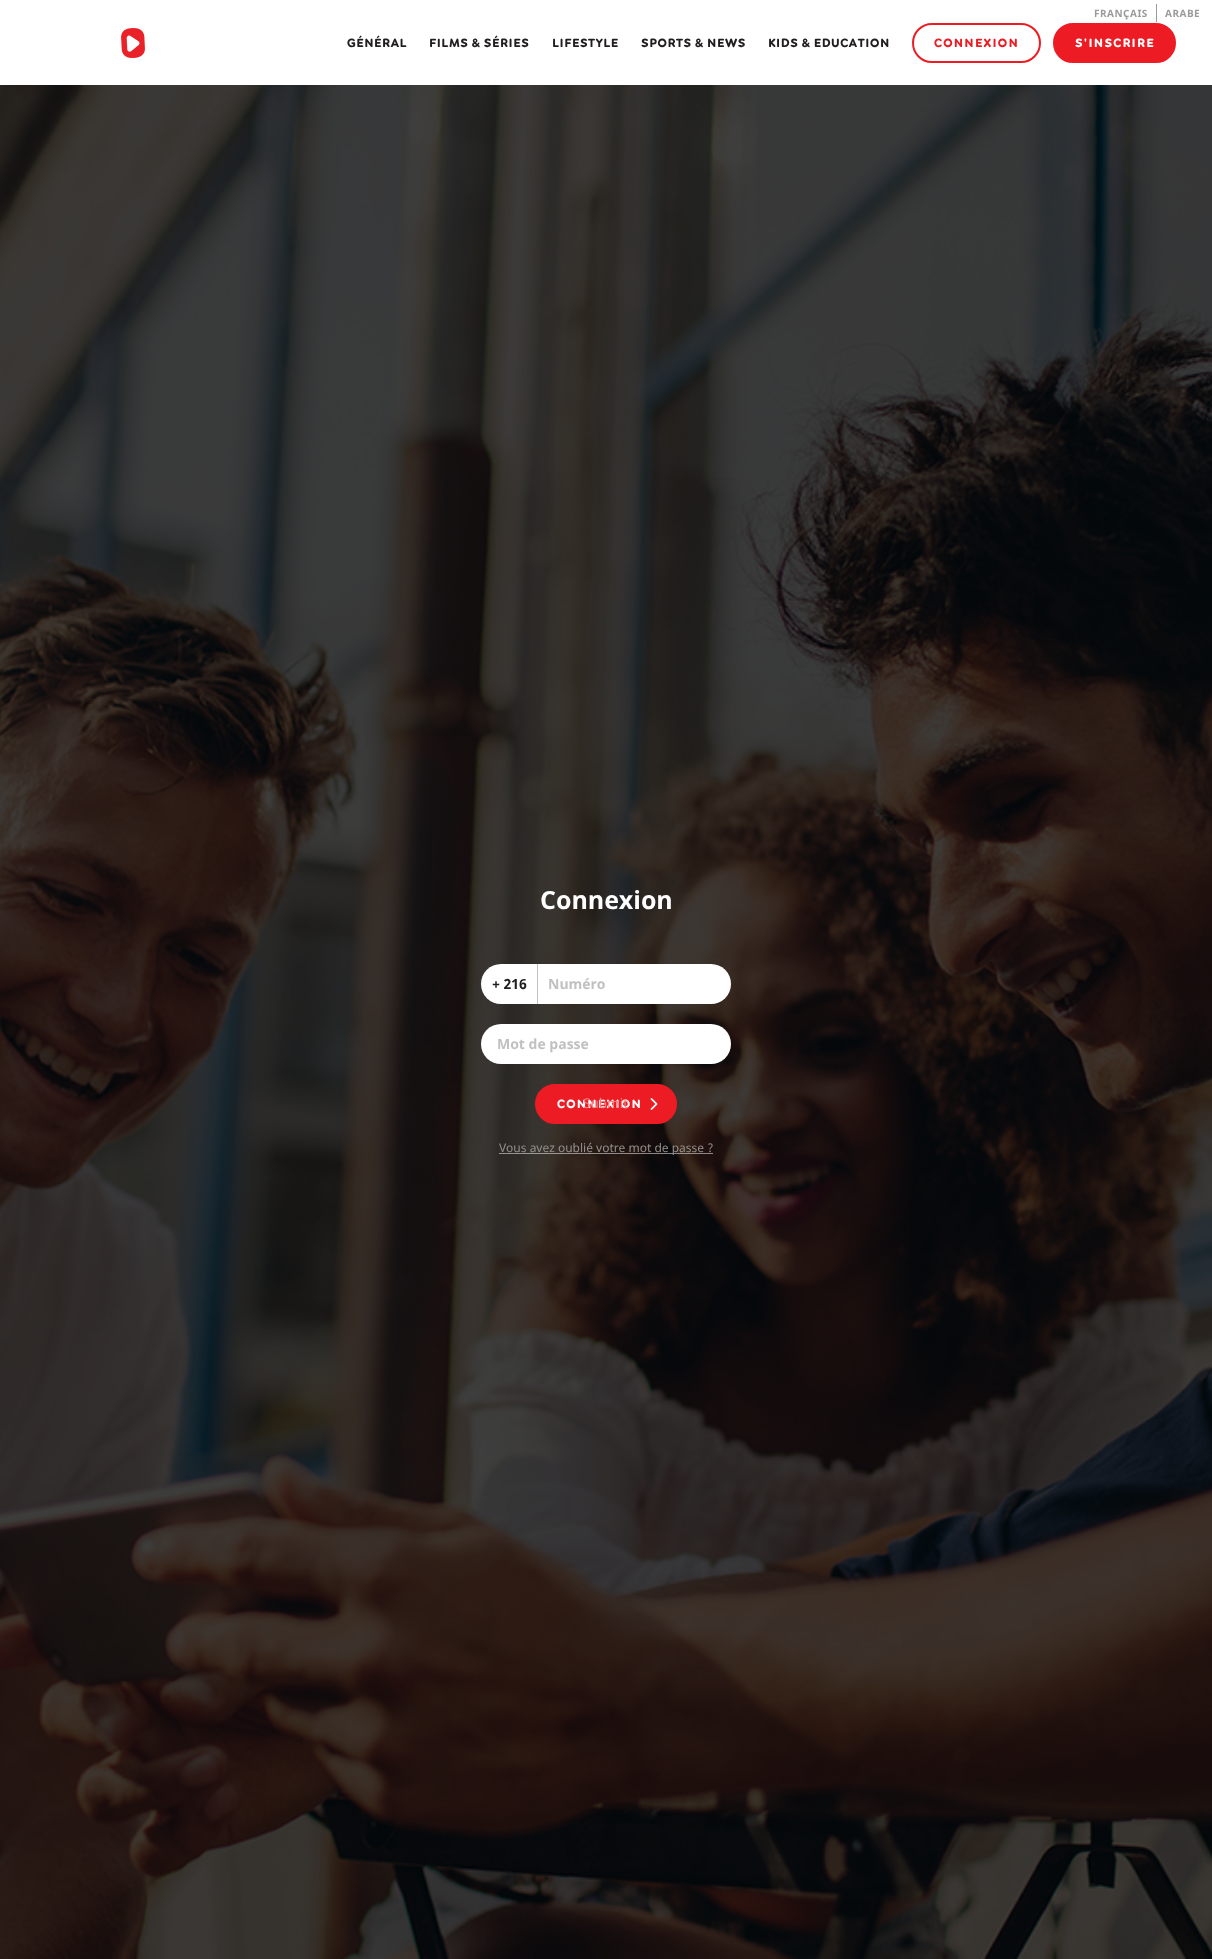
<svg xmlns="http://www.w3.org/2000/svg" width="1212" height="1959">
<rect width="100%" height="100%" fill="#fff"/>
<text x="1094" y="17" style="font-family:Noto Sans;font-size:10px;font-weight:bold;letter-spacing:0.5px;fill:#9b9b9b">FRANÇAIS</text>
<rect x="1156" y="4" width="1" height="18" fill="#9b9b9b"/>
<text x="1165" y="17" style="font-family:Noto Sans;font-size:10px;font-weight:bold;letter-spacing:0.5px;fill:#9b9b9b">ARABE</text>
<image x="121" y="28" width="24" height="30" href="media/1.png"/>
<text x="347" y="47" style="font-family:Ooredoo;font-size:12px;font-weight:900;letter-spacing:0.6px;fill:#221e20">GÉNÉRAL</text>
<text x="429" y="47" style="font-family:Ooredoo;font-size:12px;font-weight:900;letter-spacing:0.6px;fill:#221e20">FILMS &amp; SÉRIES</text>
<text x="552" y="47" style="font-family:Ooredoo;font-size:12px;font-weight:900;letter-spacing:0.6px;fill:#221e20">LIFESTYLE</text>
<text x="641" y="47" style="font-family:Ooredoo;font-size:12px;font-weight:900;letter-spacing:0.6px;fill:#221e20">SPORTS &amp; NEWS</text>
<text x="768" y="47" style="font-family:Ooredoo;font-size:12px;font-weight:900;letter-spacing:0.6px;fill:#221e20">KIDS &amp; EDUCATION</text>
<rect x="913" y="24" width="127" height="38" rx="19" fill="none" stroke="#ed1c24" stroke-width="2"/>
<text x="934" y="47" style="font-family:Ooredoo;font-size:12px;font-weight:900;letter-spacing:1.25px;fill:#ed1c24">CONNEXION</text>
<rect x="1054" y="24" width="121" height="38" rx="19" fill="#ed1c24" stroke="#ed1c24" stroke-width="2"/>
<text x="1075" y="47" style="font-family:Ooredoo;font-size:12px;font-weight:900;letter-spacing:1.25px;fill:#fff">S'INSCRIRE</text>
<image x="0" y="85" width="1212" height="1874" href="media/2.png"/>
<text x="540" y="909" style="font-family:Noto Sans;font-size:25px;font-weight:bold;fill:#fff">Connexion</text>
<rect x="481" y="964" width="250" height="40" rx="20" fill="#fff"/>
<rect x="537" y="964" width="1" height="40" fill="#c1c1c1"/>
<text x="492" y="989" style="font-family:Noto Sans;font-size:14px;font-weight:bold;fill:#221e20">+ 216</text>
<text x="548" y="989" style="font-family:Noto Sans;font-size:14px;font-weight:bold;fill:#c1c1c1">Numéro</text>
<rect x="481" y="1024" width="250" height="40" rx="20" fill="#fff"/>
<text x="497" y="1049" style="font-family:Noto Sans;font-size:14px;font-weight:bold;fill:#c1c1c1">Mot de passe</text>
<rect x="536" y="1085" width="140" height="38" rx="19" fill="#ed1c24" stroke="#ed1c24" stroke-width="2"/>
<text x="557" y="1108" style="font-family:Ooredoo;font-size:12px;font-weight:900;letter-spacing:1.25px;fill:#fff">CONNEXION</text>
<text x="583" y="1108" style="font-family:Noto Sans;font-size:13.5px;fill:#f38084">Submit</text>
<image x="650" y="1098" width="8" height="12" href="media/3.png"/>
<rect x="499" y="1153" width="214" height="1" fill="#ffffff80"/>
<text x="499" y="1152" style="font-family:Noto Sans;font-size:12px;fill:#948f8c">Vous avez oublié votre mot de passe ?</text>
</svg>
